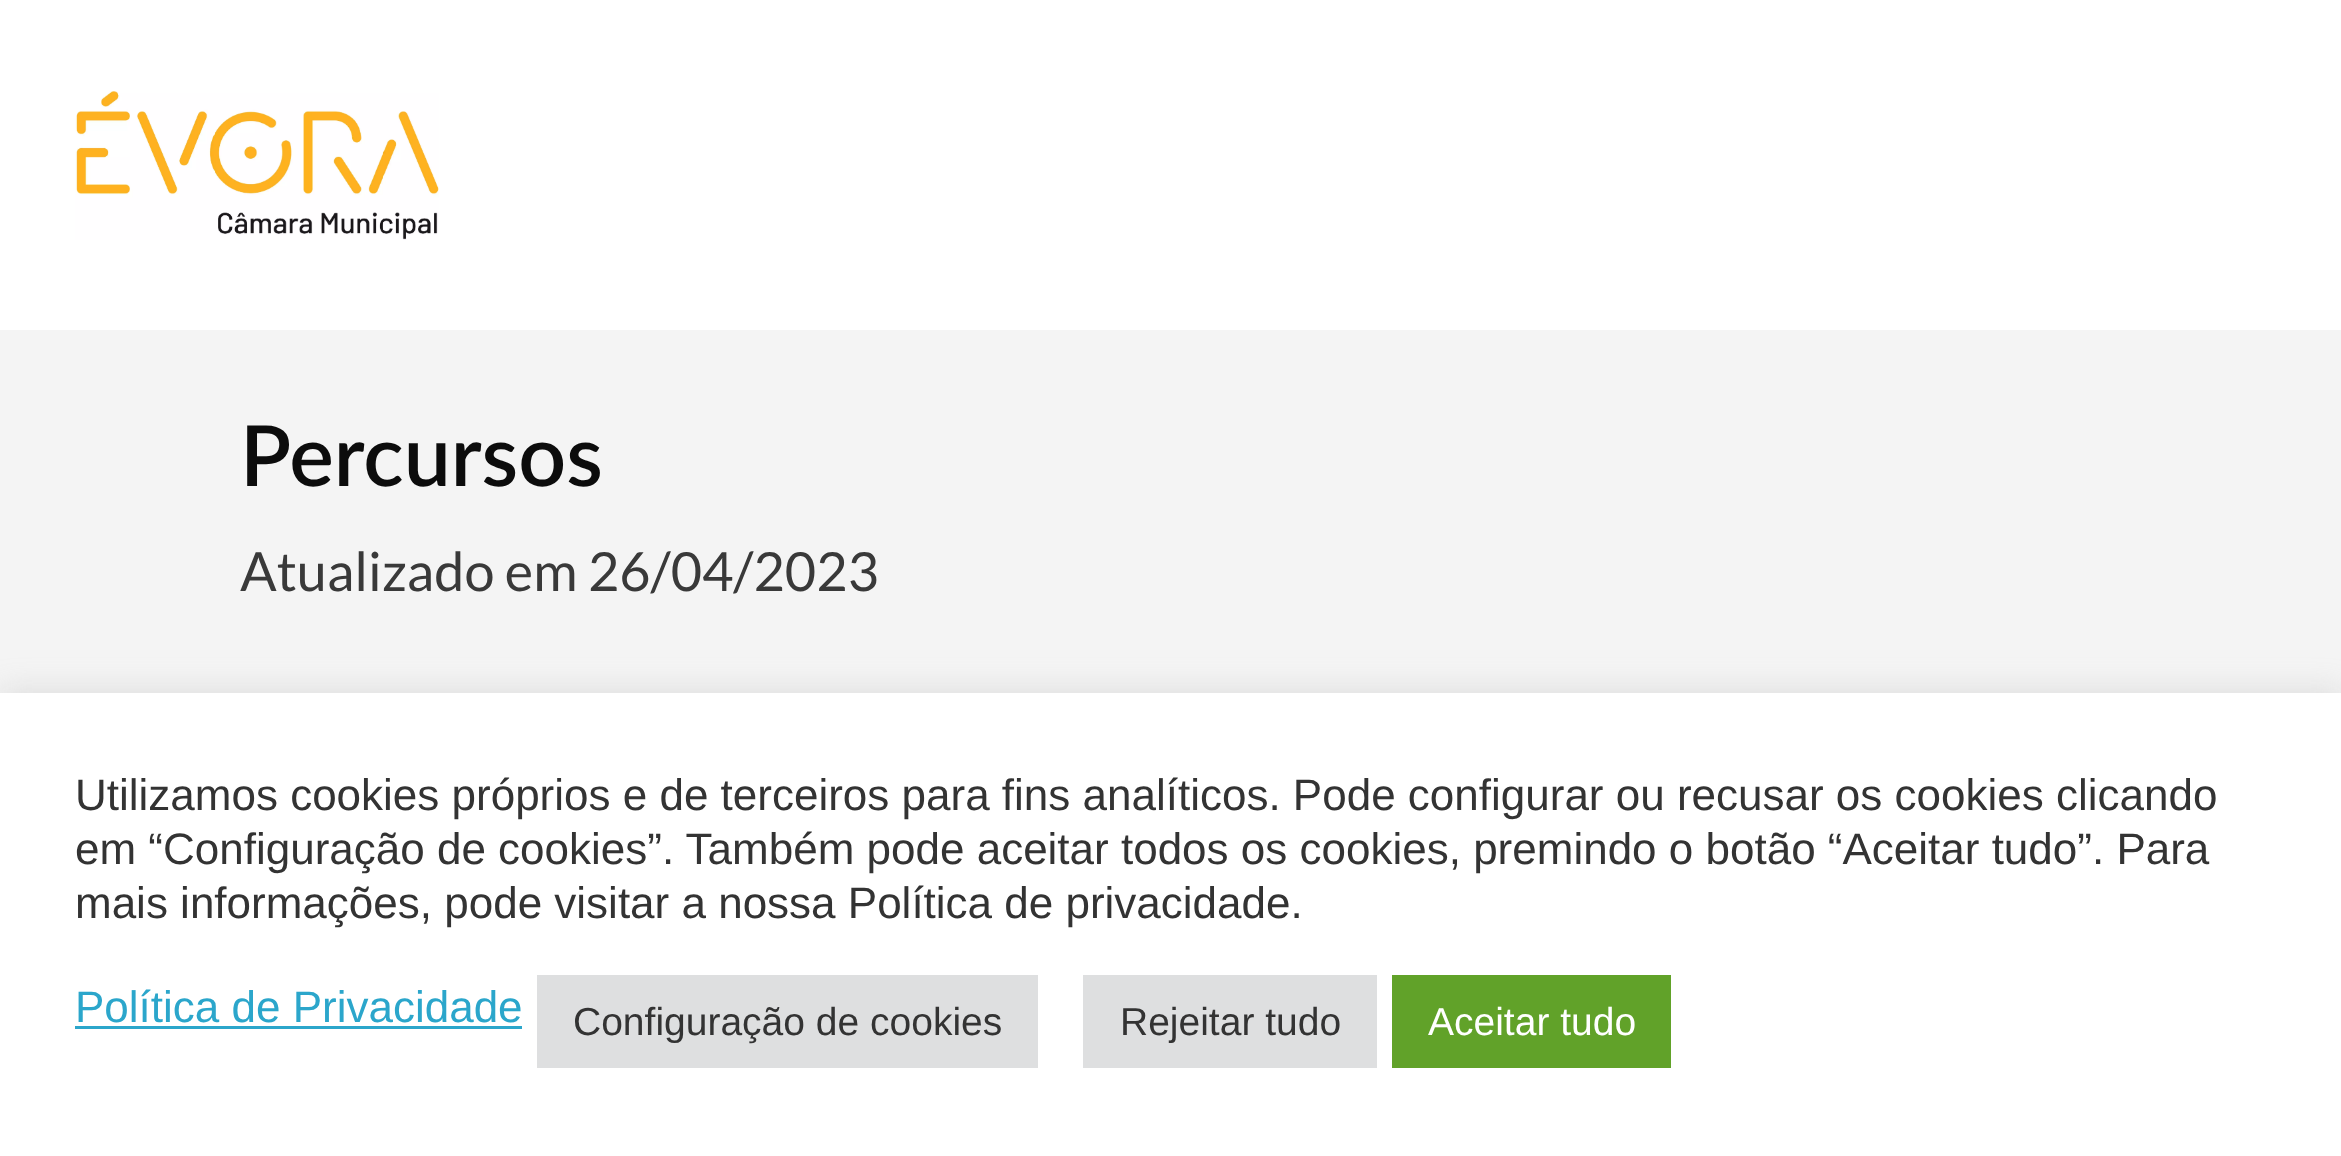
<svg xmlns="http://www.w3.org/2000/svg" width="2341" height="1156">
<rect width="100%" height="100%" fill="#f4f4f4"/>
<rect width="2341" height="330" fill="#fff"/>
<image x="75" y="91" width="364" height="149" href="media/1.png"/>
<text x="240" y="486" style="font-family:Lato;font-size:84px;font-weight:600;fill:#0c0c0c">Percursos</text>
<text x="240" y="591" style="font-family:Lato;font-size:54px;fill:#393939">Atualizado em 26/04/2023</text>
<rect y="690" width="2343" height="465" fill="#acabab4d" filter="blur(15px)"/>
<rect y="693" width="2341" height="463" fill="#fff"/>
<text x="75" y="810" style="font-family:Liberation Sans;font-size:44px;fill:#333">Utilizamos cookies próprios e de terceiros para fins analíticos. Pode configurar ou recusar os cookies clicando</text>
<text x="75" y="864" style="font-family:Liberation Sans;font-size:44px;fill:#333">em “Configuração de cookies”. Também pode aceitar todos os cookies, premindo o botão “Aceitar tudo”. Para</text>
<text x="75" y="918" style="font-family:Liberation Sans;font-size:44px;fill:#333">mais informações, pode visitar a nossa Política de privacidade.</text>
<text x="75" y="1022" style="font-family:Liberation Sans;font-size:44px;fill:#2ba6cb">Política de Privacidade</text>
<rect x="75" y="1026" width="447" height="3" fill="#2ba6cb"/>
<rect x="537" y="975" width="501" height="93" fill="#dedfe0"/>
<text x="573" y="1035" style="font-family:Liberation Sans;font-size:39px;fill:#333">Configuração de cookies</text>
<rect x="1083" y="975" width="294" height="93" fill="#dedfe0"/>
<text x="1120" y="1035" style="font-family:Liberation Sans;font-size:39px;fill:#333">Rejeitar tudo</text>
<rect x="1392" y="975" width="279" height="93" fill="#61a229"/>
<text x="1428" y="1035" style="font-family:Liberation Sans;font-size:39px;fill:#fff">Aceitar tudo</text>
</svg>
